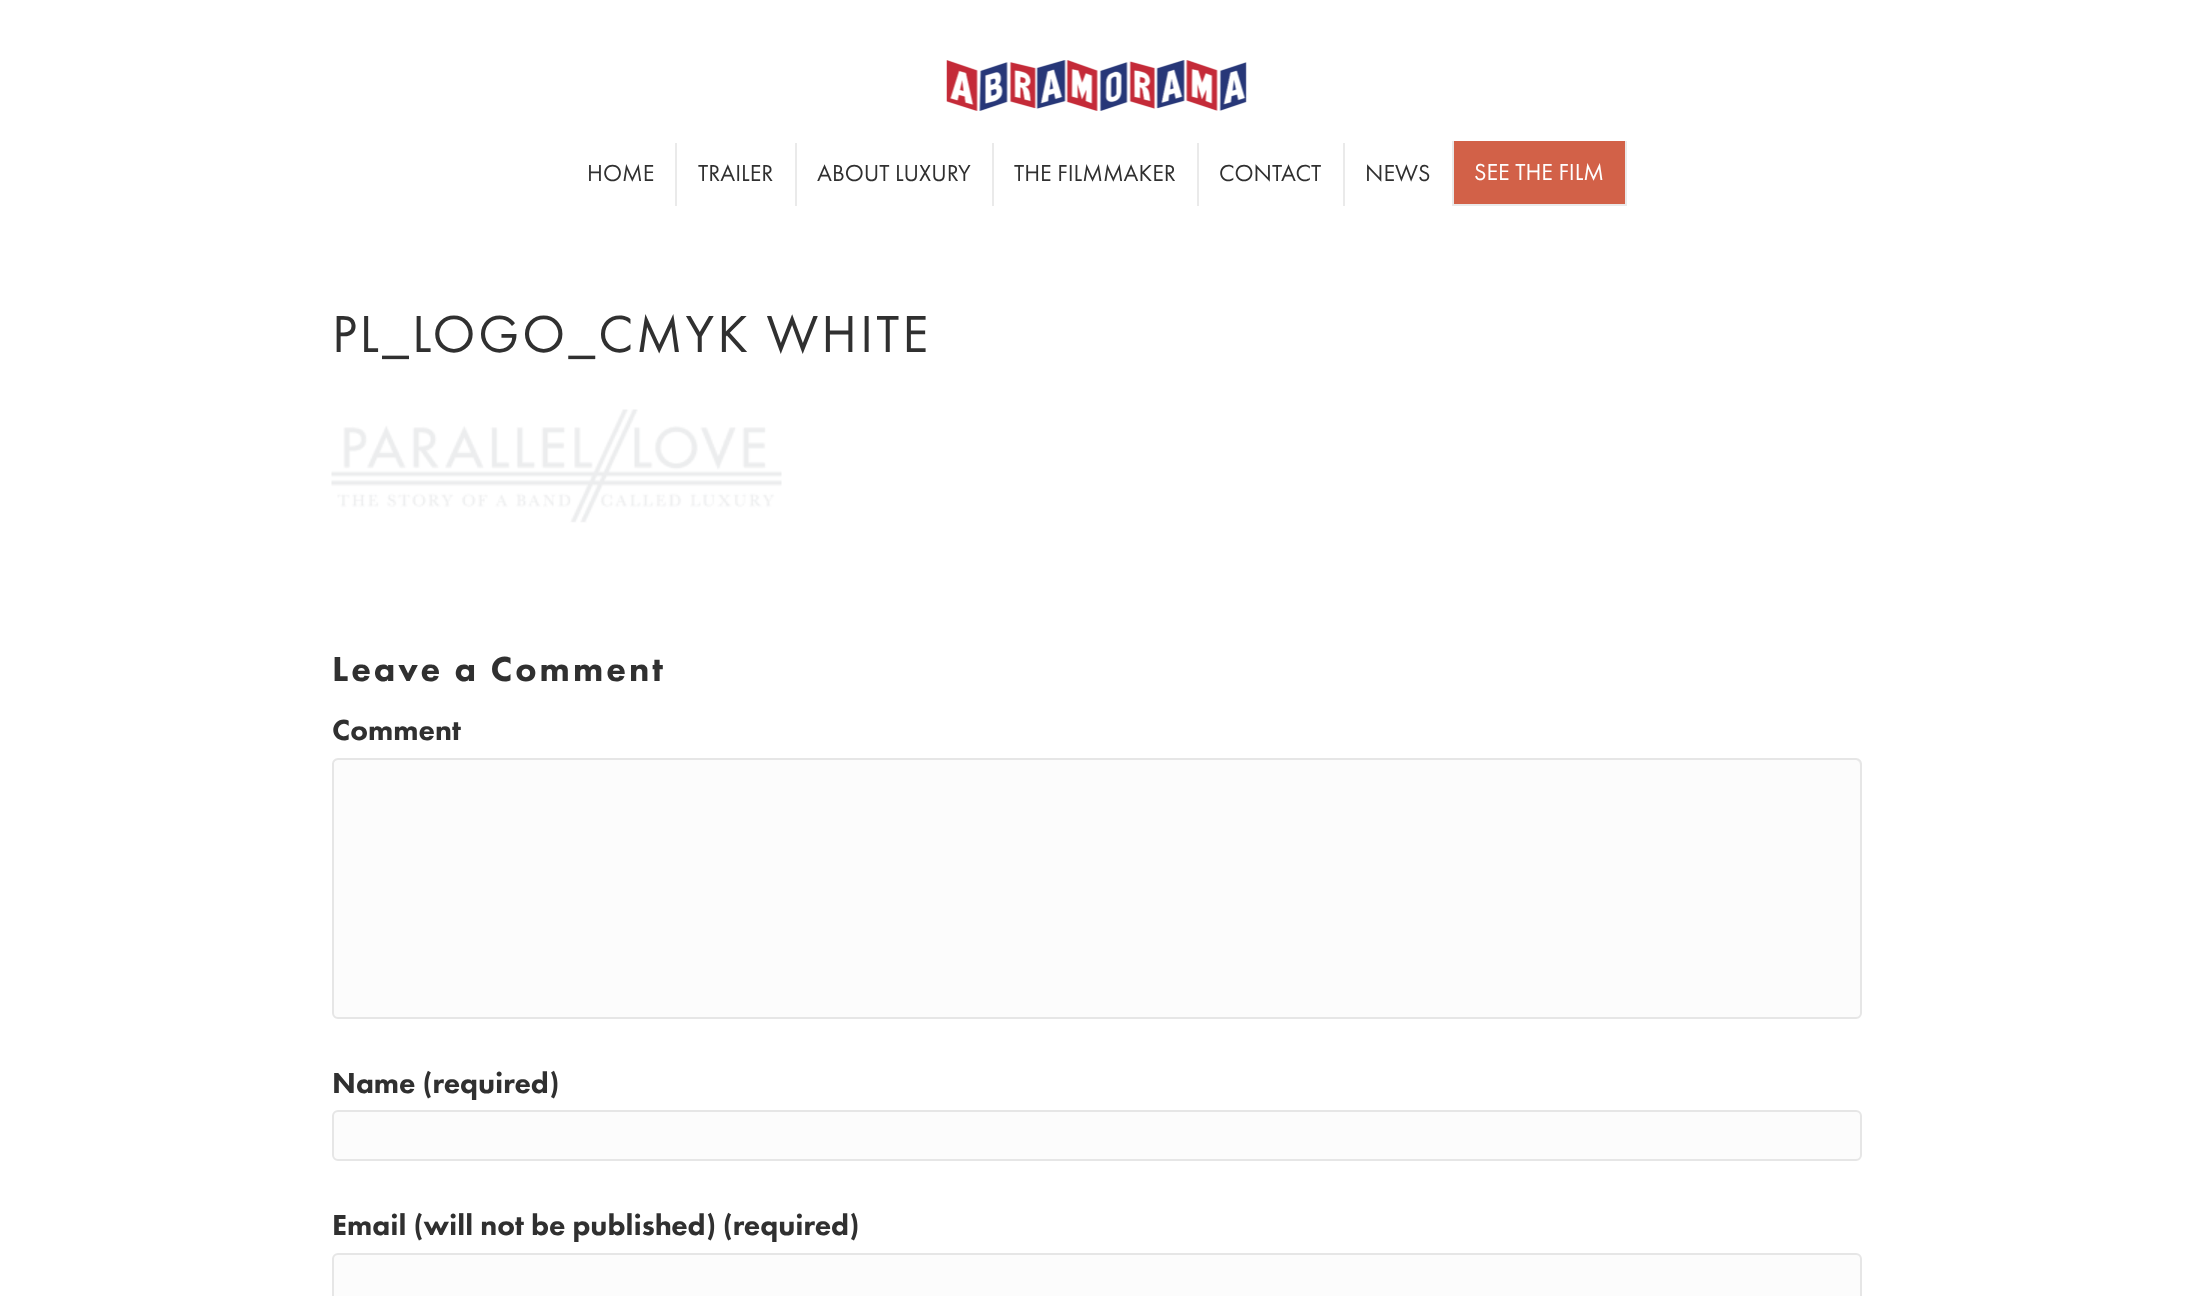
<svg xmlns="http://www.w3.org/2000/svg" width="2193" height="1296">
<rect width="100%" height="100%" fill="#fff"/>
<image x="946" y="60" width="301" height="51" href="media/1.png"/>
<text x="587" y="181" style="font-family:Futura PT;font-size:24px;fill:#303030">HOME</text>
<rect x="675" y="143" width="2" height="63" fill="#eaeaea"/>
<text x="698" y="181" style="font-family:Futura PT;font-size:24px;fill:#303030">TRAILER</text>
<rect x="795" y="143" width="2" height="63" fill="#eaeaea"/>
<text x="817" y="181" style="font-family:Futura PT;font-size:24px;fill:#303030">ABOUT LUXURY</text>
<rect x="992" y="143" width="2" height="63" fill="#eaeaea"/>
<text x="1014" y="181" style="font-family:Futura PT;font-size:24px;fill:#303030">THE FILMMAKER</text>
<rect x="1197" y="143" width="2" height="63" fill="#eaeaea"/>
<text x="1219" y="181" style="font-family:Futura PT;font-size:24px;fill:#303030">CONTACT</text>
<rect x="1343" y="143" width="2" height="63" fill="#eaeaea"/>
<text x="1365" y="181" style="font-family:Futura PT;font-size:24px;fill:#303030">NEWS</text>
<rect x="1454" y="141" width="171" height="63" fill="#d26148"/>
<rect x="1625" y="141" width="2" height="65" fill="#eaeaea"/>
<rect x="1452" y="204" width="174" height="2" fill="#eaeaea"/>
<rect x="1452" y="141" width="2" height="65" fill="#eaeaea"/>
<text x="1474" y="180" style="font-family:Futura PT;font-size:24px;fill:#fff">SEE THE FILM</text>
<text x="332" y="352" style="font-family:Futura PT;font-size:54px;letter-spacing:3px;fill:#303030">PL_LOGO_CMYK WHITE</text>
<image x="331" y="409" width="451" height="114" href="media/2.png"/>
<text x="332" y="681" style="font-family:Futura PT;font-size:36px;font-weight:900;letter-spacing:3px;fill:#303030">Leave a Comment</text>
<text x="332" y="740" style="font-family:Futura PT;font-size:30px;font-weight:900;fill:#303030">Comment</text>
<rect x="332" y="758" width="1530" height="261" rx="6" fill="#fcfcfc"/>
<path d="M338 760h1518c2 0 4 3 4 5v-1c0-3-2-5-5-5h-1517c-3 0-5 2-5 5v1c0-2 2-5 5-5z" fill="#e9e9e9"/>
<rect x="333" y="759" width="1528" height="259" rx="5" fill="none" stroke="#e6e6e6" stroke-width="2"/>
<text x="332" y="1093" style="font-family:Futura PT;font-size:30px;font-weight:900;fill:#303030">Name (required)</text>
<rect x="333" y="1111" width="1528" height="49" rx="5" fill="#fcfcfc" stroke="#e6e6e6" stroke-width="2"/>
<text x="332" y="1235" style="font-family:Futura PT;font-size:30px;font-weight:900;fill:#303030">Email (will not be published) (required)</text>
<rect x="333" y="1254" width="1528" height="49" rx="5" fill="#fcfcfc" stroke="#e6e6e6" stroke-width="2"/>
</svg>
